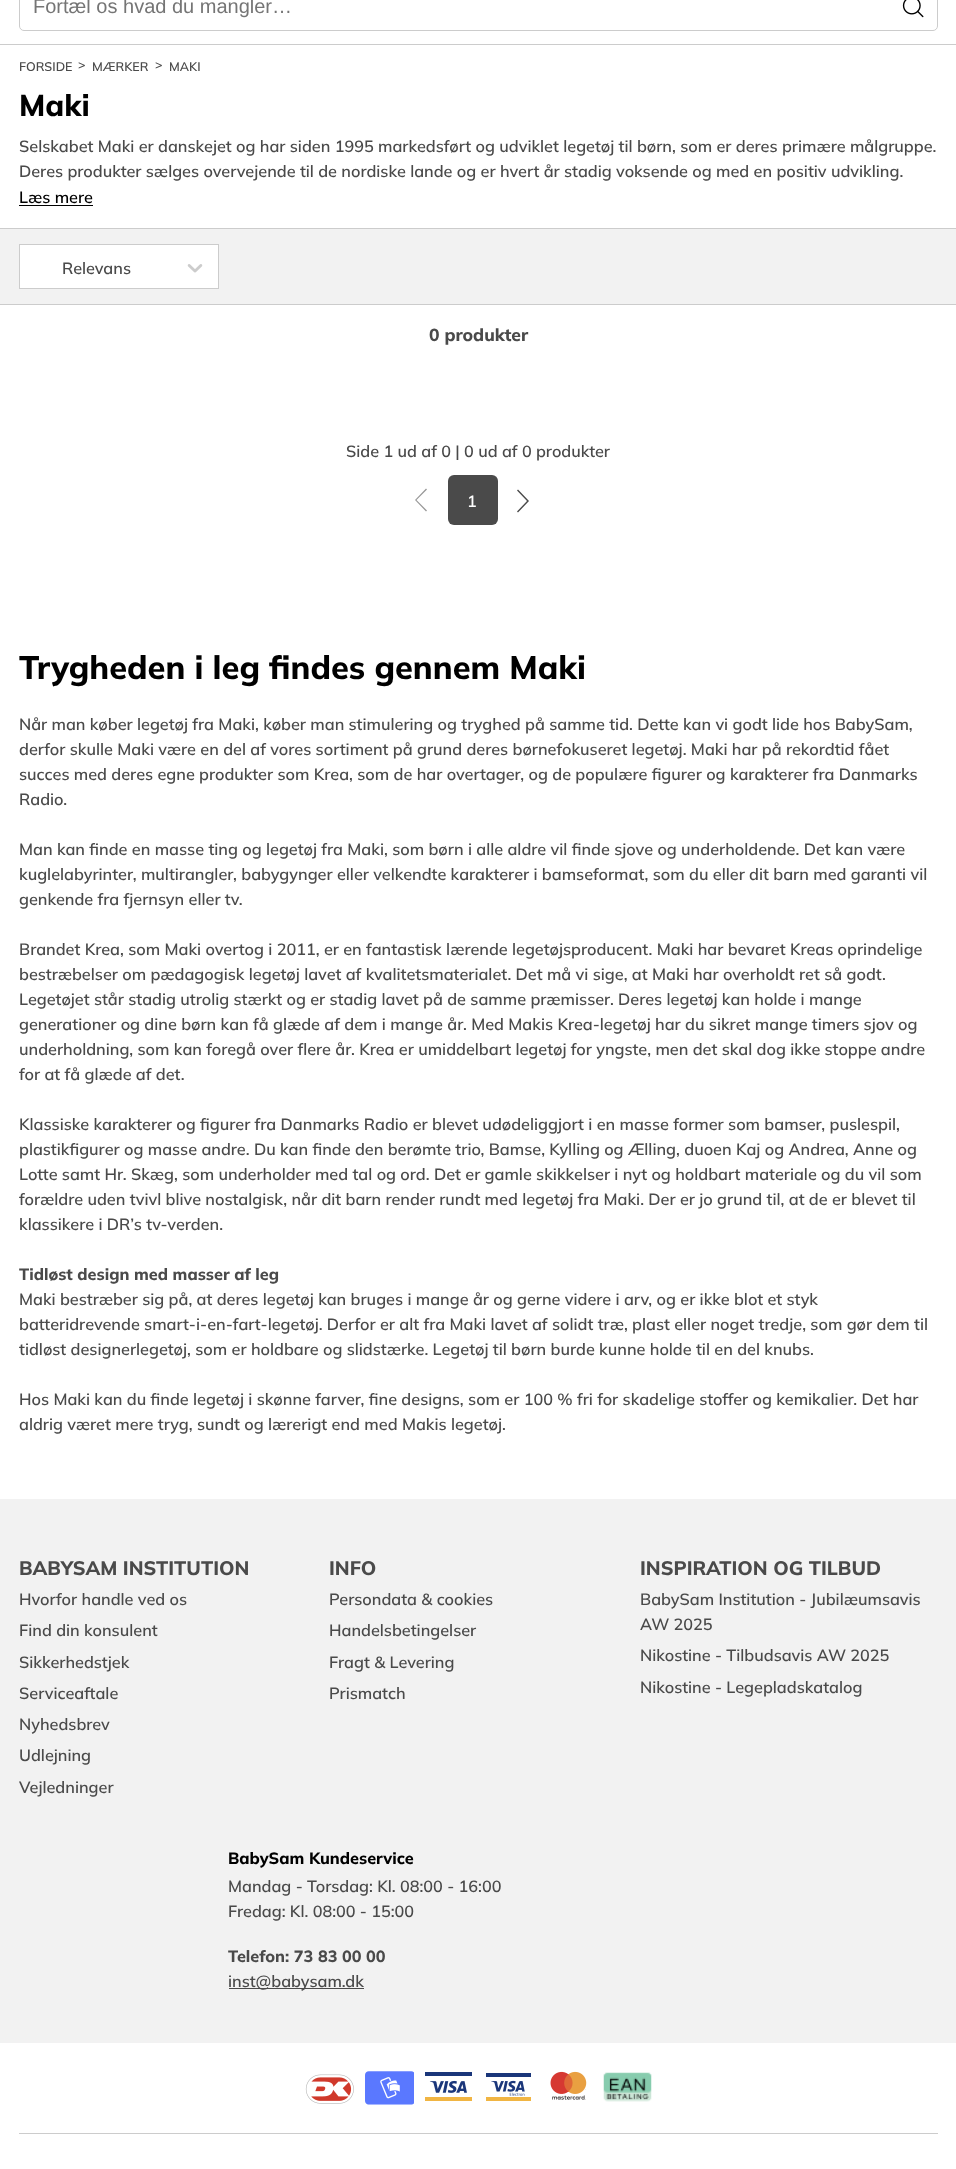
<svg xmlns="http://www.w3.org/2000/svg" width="956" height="2169">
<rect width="100%" height="100%" fill="#fff"/>
<rect y="44" width="956" height="1" fill="#ccc"/>
<rect x="19.5" y="-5.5" width="918" height="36" rx="4.5" fill="none" stroke="#ccc"/>
<text x="33" y="13" style="font-family:Liberation Sans;font-size:20px;fill:#757575">Fortæl os hvad du mangler…</text>
<image x="902" y="0" width="22" height="18" href="media/1.png"/>
<text x="19" y="71" style="font-family:Mulish;font-size:12.5px;font-weight:600;fill:#4a4a4a">FORSIDE</text>
<text x="78" y="69" style="font-family:Mulish;font-size:12.5px;font-weight:600;fill:#4a4a4a">&gt;</text>
<text x="92" y="71" style="font-family:Mulish;font-size:12.5px;font-weight:600;fill:#4a4a4a">MÆRKER</text>
<text x="155" y="69" style="font-family:Mulish;font-size:12.5px;font-weight:600;fill:#4a4a4a">&gt;</text>
<text x="169" y="71" style="font-family:Mulish;font-size:12.5px;font-weight:600;fill:#4a4a4a">MAKI</text>
<text x="19" y="116" style="font-family:Mulish;font-size:30px;font-weight:800;fill:#000">Maki</text>
<text x="19" y="152" style="font-family:Mulish;font-size:16.25px;font-weight:600;fill:#4a4a4a">Selskabet Maki er danskejet og har siden 1995 markedsført og udviklet legetøj til børn, som er deres primære målgruppe.</text>
<text x="19" y="177" style="font-family:Mulish;font-size:16.25px;font-weight:600;fill:#4a4a4a">Deres produkter sælges overvejende til de nordiske lande og er hvert år stadig voksende og med en positiv udvikling.</text>
<text x="19" y="203" style="font-family:Mulish;font-size:16.25px;font-weight:600;fill:#000">Læs mere</text>
<rect x="19" y="205" width="74" height="1" fill="#000"/>
<rect y="229" width="956" height="75" fill="#f2f2f2"/>
<rect y="228" width="956" height="1" fill="#ccc"/>
<rect y="304" width="956" height="1" fill="#ccc"/>
<rect x="19.5" y="244.5" width="199" height="44" fill="#fff" stroke="#ccc"/>
<text x="62" y="274" style="font-family:Mulish;font-size:16.25px;font-weight:600;fill:#4a4a4a">Relevans</text>
<image x="187" y="264" width="16" height="9" href="media/2.png"/>
<text x="429" y="341" style="font-family:Mulish;font-size:17.5px;font-weight:800;fill:#4a4a4a">0 produkter</text>
<text x="346" y="457" style="font-family:Mulish;font-size:16.25px;font-weight:600;fill:#4a4a4a">Side 1 ud af 0 | 0 ud af 0 produkter</text>
<path d="M427 489.5l-10.5 10.5l10.5 10.5l-1 1l-11-11.5l11-11.5" fill="#999"/>
<rect x="448" y="475" width="50" height="50" rx="6" fill="#4a4a4a"/>
<text x="467" y="507" style="font-family:Mulish;font-size:16.25px;font-weight:600;fill:#fff">1</text>
<path d="M517 511.5l10-10.5l-10-10.5l1-1l11 11.5l-11 11.5" fill="#4a4a4a"/>
<text x="19" y="679" style="font-family:Mulish;font-size:32.5px;font-weight:800;fill:#000">Trygheden i leg findes gennem Maki</text>
<text x="19" y="730" style="font-family:Mulish;font-size:16.25px;font-weight:600;fill:#4a4a4a">Når man køber legetøj fra Maki, køber man stimulering og tryghed på samme tid. Dette kan vi godt lide hos BabySam,</text>
<text x="19" y="755" style="font-family:Mulish;font-size:16.25px;font-weight:600;fill:#4a4a4a">derfor skulle Maki være en del af vores sortiment på grund deres børnefokuseret legetøj. Maki har på rekordtid fået</text>
<text x="19" y="780" style="font-family:Mulish;font-size:16.25px;font-weight:600;fill:#4a4a4a">succes med deres egne produkter som Krea, som de har overtager, og de populære figurer og karakterer fra Danmarks</text>
<text x="19" y="805" style="font-family:Mulish;font-size:16.25px;font-weight:600;fill:#4a4a4a">Radio.</text>
<text x="19" y="855" style="font-family:Mulish;font-size:16.25px;font-weight:600;fill:#4a4a4a">Man kan finde en masse ting og legetøj fra Maki, som børn i alle aldre vil finde sjove og underholdende. Det kan være</text>
<text x="19" y="880" style="font-family:Mulish;font-size:16.25px;font-weight:600;fill:#4a4a4a">kuglelabyrinter, multirangler, babygynger eller velkendte karakterer i bamseformat, som du eller dit barn med garanti vil</text>
<text x="19" y="905" style="font-family:Mulish;font-size:16.25px;font-weight:600;fill:#4a4a4a">genkende fra fjernsyn eller tv.</text>
<text x="19" y="955" style="font-family:Mulish;font-size:16.25px;font-weight:600;fill:#4a4a4a">Brandet Krea, som Maki overtog i 2011, er en fantastisk lærende legetøjsproducent. Maki har bevaret Kreas oprindelige</text>
<text x="19" y="980" style="font-family:Mulish;font-size:16.25px;font-weight:600;fill:#4a4a4a">bestræbelser om pædagogisk legetøj lavet af kvalitetsmaterialet. Det må vi sige, at Maki har overholdt ret så godt.</text>
<text x="19" y="1005" style="font-family:Mulish;font-size:16.25px;font-weight:600;fill:#4a4a4a">Legetøjet står stadig utrolig stærkt og er stadig lavet på de samme præmisser. Deres legetøj kan holde i mange</text>
<text x="19" y="1030" style="font-family:Mulish;font-size:16.25px;font-weight:600;fill:#4a4a4a">generationer og dine børn kan få glæde af dem i mange år. Med Makis Krea-legetøj har du sikret mange timers sjov og</text>
<text x="19" y="1055" style="font-family:Mulish;font-size:16.25px;font-weight:600;fill:#4a4a4a">underholdning, som kan foregå over flere år. Krea er umiddelbart legetøj for yngste, men det skal dog ikke stoppe andre</text>
<text x="19" y="1080" style="font-family:Mulish;font-size:16.25px;font-weight:600;fill:#4a4a4a">for at få glæde af det.</text>
<text x="19" y="1130" style="font-family:Mulish;font-size:16.25px;font-weight:600;fill:#4a4a4a">Klassiske karakterer og figurer fra Danmarks Radio er blevet udødeliggjort i en masse former som bamser, puslespil,</text>
<text x="19" y="1155" style="font-family:Mulish;font-size:16.25px;font-weight:600;fill:#4a4a4a">plastikfigurer og masse andre. Du kan finde den berømte trio, Bamse, Kylling og Ælling, duoen Kaj og Andrea, Anne og</text>
<text x="19" y="1180" style="font-family:Mulish;font-size:16.25px;font-weight:600;fill:#4a4a4a">Lotte samt Hr. Skæg, som underholder med tal og ord. Det er gamle skikkelser i nyt og holdbart materiale og du vil som</text>
<text x="19" y="1205" style="font-family:Mulish;font-size:16.25px;font-weight:600;fill:#4a4a4a">forældre uden tvivl blive nostalgisk, når dit barn render rundt med legetøj fra Maki. Der er jo grund til, at de er blevet til</text>
<text x="19" y="1230" style="font-family:Mulish;font-size:16.25px;font-weight:600;fill:#4a4a4a">klassikere i DR’s tv-verden.</text>
<text x="19" y="1280" style="font-family:Mulish;font-size:16.25px;font-weight:800;fill:#4a4a4a">Tidløst design med masser af leg</text>
<text x="19" y="1305" style="font-family:Mulish;font-size:16.25px;font-weight:600;fill:#4a4a4a">Maki bestræber sig på, at deres legetøj kan bruges i mange år og gerne videre i arv, og er ikke blot et styk</text>
<text x="19" y="1330" style="font-family:Mulish;font-size:16.25px;font-weight:600;fill:#4a4a4a">batteridrevende smart-i-en-fart-legetøj. Derfor er alt fra Maki lavet af solidt træ, plast eller noget tredje, som gør dem til</text>
<text x="19" y="1355" style="font-family:Mulish;font-size:16.25px;font-weight:600;fill:#4a4a4a">tidløst designerlegetøj, som er holdbare og slidstærke. Legetøj til børn burde kunne holde til en del knubs.</text>
<text x="19" y="1405" style="font-family:Mulish;font-size:16.25px;font-weight:600;fill:#4a4a4a">Hos Maki kan du finde legetøj i skønne farver, fine designs, som er 100 % fri for skadelige stoffer og kemikalier. Det har</text>
<text x="19" y="1430" style="font-family:Mulish;font-size:16.25px;font-weight:600;fill:#4a4a4a">aldrig været mere tryg, sundt og lærerigt end med Makis legetøj.</text>
<rect y="1499" width="956" height="544" fill="#f2f2f2"/>
<text x="19" y="1575" style="font-family:Mulish;font-size:19.5px;font-weight:800;fill:#4a4a4a">BABYSAM INSTITUTION</text>
<text x="19" y="1605" style="font-family:Mulish;font-size:16.25px;font-weight:600;fill:#4a4a4a">Hvorfor handle ved os</text>
<text x="19" y="1636" style="font-family:Mulish;font-size:16.25px;font-weight:600;fill:#4a4a4a">Find din konsulent</text>
<text x="19" y="1668" style="font-family:Mulish;font-size:16.25px;font-weight:600;fill:#4a4a4a">Sikkerhedstjek</text>
<text x="19" y="1699" style="font-family:Mulish;font-size:16.25px;font-weight:600;fill:#4a4a4a">Serviceaftale</text>
<text x="19" y="1730" style="font-family:Mulish;font-size:16.25px;font-weight:600;fill:#4a4a4a">Nyhedsbrev</text>
<text x="19" y="1761" style="font-family:Mulish;font-size:16.25px;font-weight:600;fill:#4a4a4a">Udlejning</text>
<text x="19" y="1793" style="font-family:Mulish;font-size:16.25px;font-weight:600;fill:#4a4a4a">Vejledninger</text>
<text x="329" y="1575" style="font-family:Mulish;font-size:19.5px;font-weight:800;fill:#4a4a4a">INFO</text>
<text x="329" y="1605" style="font-family:Mulish;font-size:16.25px;font-weight:600;fill:#4a4a4a">Persondata &amp; cookies</text>
<text x="329" y="1636" style="font-family:Mulish;font-size:16.25px;font-weight:600;fill:#4a4a4a">Handelsbetingelser</text>
<text x="329" y="1668" style="font-family:Mulish;font-size:16.25px;font-weight:600;fill:#4a4a4a">Fragt &amp; Levering</text>
<text x="329" y="1699" style="font-family:Mulish;font-size:16.25px;font-weight:600;fill:#4a4a4a">Prismatch</text>
<text x="640" y="1575" style="font-family:Mulish;font-size:19.5px;font-weight:800;fill:#4a4a4a">INSPIRATION OG TILBUD</text>
<text x="640" y="1605" style="font-family:Mulish;font-size:16.25px;font-weight:600;fill:#4a4a4a">BabySam Institution - Jubilæumsavis</text>
<text x="640" y="1630" style="font-family:Mulish;font-size:16.25px;font-weight:600;fill:#4a4a4a">AW 2025</text>
<text x="640" y="1661" style="font-family:Mulish;font-size:16.25px;font-weight:600;fill:#4a4a4a">Nikostine - Tilbudsavis AW 2025</text>
<text x="640" y="1693" style="font-family:Mulish;font-size:16.25px;font-weight:600;fill:#4a4a4a">Nikostine - Legepladskatalog</text>
<text x="228" y="1864" style="font-family:Mulish;font-size:16.25px;font-weight:800;fill:#000">BabySam Kundeservice</text>
<text x="228" y="1892" style="font-family:Mulish;font-size:16.25px;font-weight:600;fill:#4a4a4a">Mandag - Torsdag: Kl. 08:00 - 16:00</text>
<text x="228" y="1917" style="font-family:Mulish;font-size:16.25px;font-weight:600;fill:#4a4a4a">Fredag: Kl. 08:00 - 15:00</text>
<text x="228" y="1962" style="font-family:Mulish;font-size:16.25px;font-weight:800;fill:#4a4a4a">Telefon: 73 83 00 00</text>
<rect x="229" y="1988" width="135" height="1" fill="#4a4a4a"/>
<text x="228" y="1987" style="font-family:Mulish;font-size:16.25px;font-weight:600;fill:#4a4a4a">inst@babysam.dk</text>
<rect x="19" y="2133" width="919" height="1" fill="#ccc"/>
<image x="305" y="2074" width="49" height="30" href="media/3.png"/>
<image x="365" y="2071" width="49" height="34" href="media/4.png"/>
<image x="425" y="2072" width="47" height="29" href="media/5.png"/>
<image x="486" y="2073" width="45" height="28" href="media/6.png"/>
<image x="550" y="2071" width="37" height="29" href="media/7.png"/>
<image x="603" y="2072" width="49" height="30" href="media/8.png"/>
</svg>
